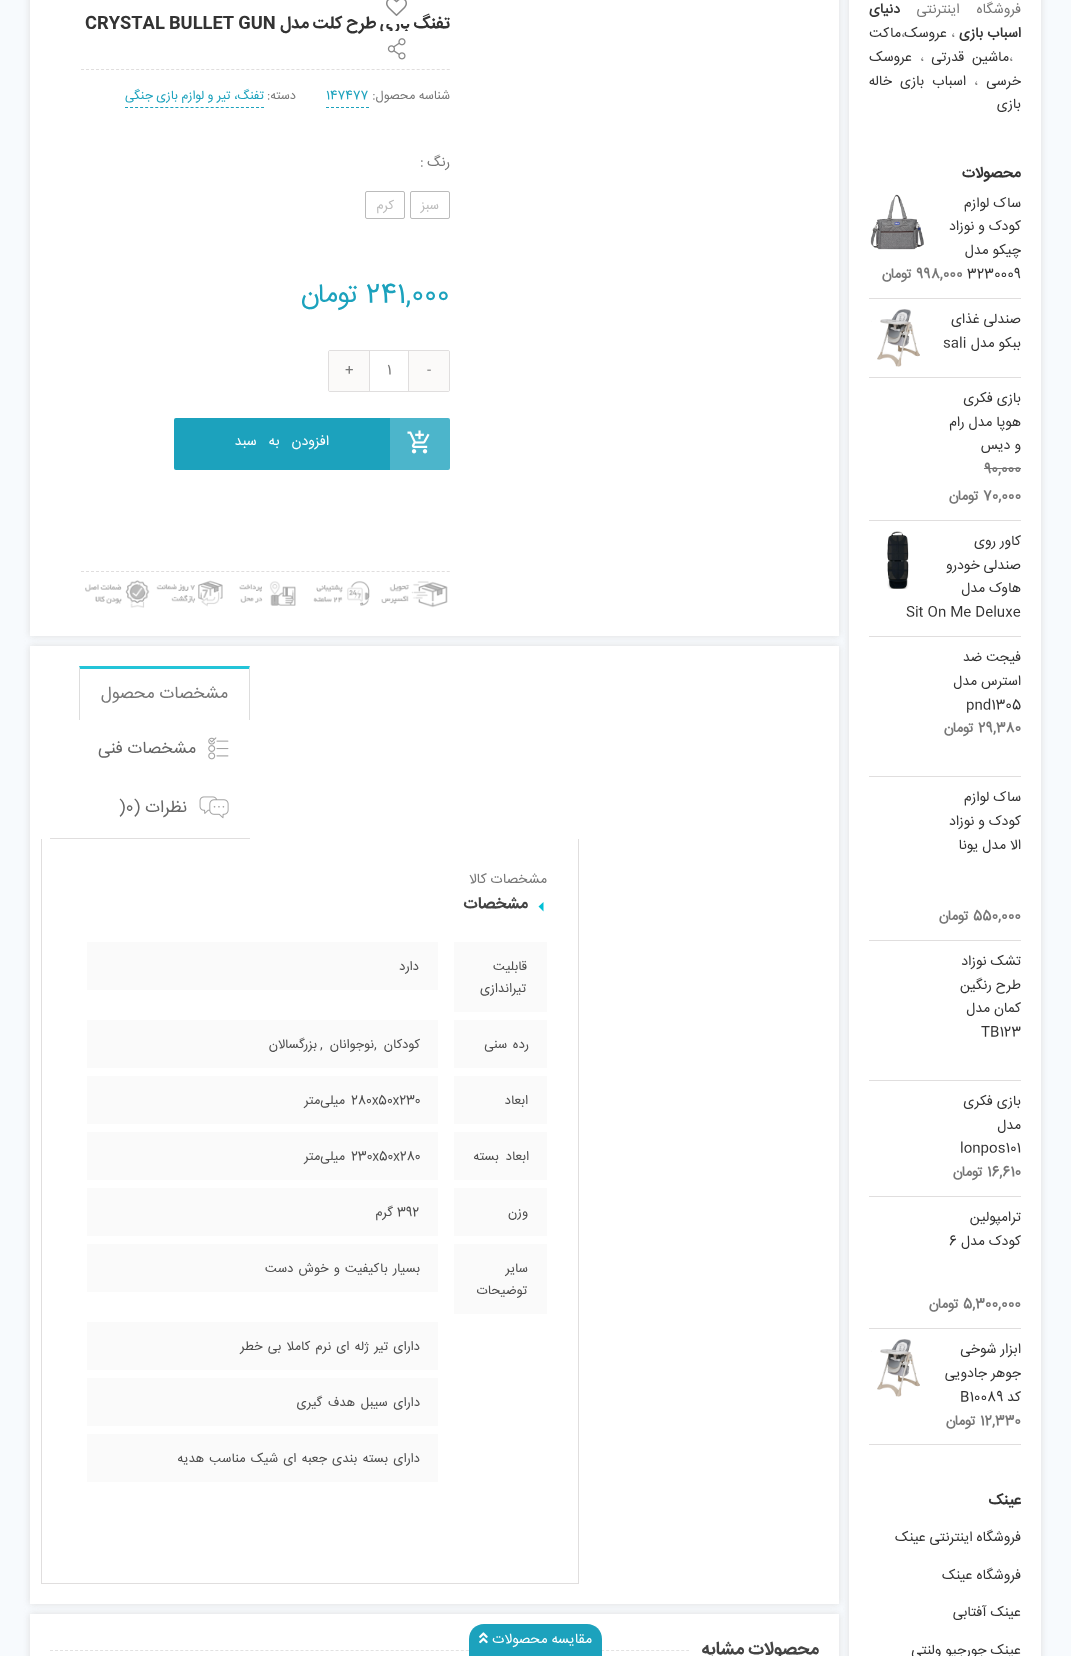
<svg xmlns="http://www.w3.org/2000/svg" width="1071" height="1656">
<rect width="100%" height="100%" fill="#f7fafd"/>
<rect x="849" y="-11" width="192" height="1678" fill="#ddd" filter="blur(3.5px)"/>
<rect x="849" width="192" height="1656" fill="#fff"/>
<text x="1021" y="13" word-spacing="13" style="font-family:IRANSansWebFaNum;font-size:14px;direction:rtl;fill:#777">فروشگاه اینترنتی</text>
<text x="900" y="13" style="font-family:IRANSansWebFaNum;font-size:14px;font-weight:bold;direction:rtl;fill:#333">دنیای</text>
<text x="1021" y="37" style="font-family:IRANSansWebFaNum;font-size:14px;font-weight:bold;direction:rtl;fill:#333">اسباب بازی</text>
<text x="951" y="37" style="font-family:IRANSansWebFaNum;font-size:14px;fill:#777">،</text>
<text x="947" y="37" style="font-family:IRANSansWebFaNum;font-size:14px;direction:rtl;fill:#333">عروسک</text>
<text x="901" y="37" style="font-family:IRANSansWebFaNum;font-size:14px;fill:#777">،</text>
<text x="901" y="37" style="font-family:IRANSansWebFaNum;font-size:14px;direction:rtl;fill:#333">ماکت</text>
<text x="1009" y="61" style="font-family:IRANSansWebFaNum;font-size:14px;fill:#777">،</text>
<text x="1009" y="61" word-spacing="4" style="font-family:IRANSansWebFaNum;font-size:14px;direction:rtl;fill:#333">ماشین قدرتی</text>
<text x="920" y="61" style="font-family:IRANSansWebFaNum;font-size:14px;fill:#777">،</text>
<text x="912" y="61" style="font-family:IRANSansWebFaNum;font-size:14px;direction:rtl;fill:#333">عروسک</text>
<text x="1021" y="85" style="font-family:IRANSansWebFaNum;font-size:14px;direction:rtl;fill:#333">خرسی</text>
<text x="974" y="85" style="font-family:IRANSansWebFaNum;font-size:14px;fill:#777">،</text>
<text x="966" y="85" word-spacing="4" style="font-family:IRANSansWebFaNum;font-size:14px;direction:rtl;fill:#333">اسباب بازی خاله</text>
<text x="1021" y="108" style="font-family:IRANSansWebFaNum;font-size:14px;direction:rtl;fill:#333">بازی</text>
<text x="1021" y="177" style="font-family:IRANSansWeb;font-size:15px;font-weight:bold;direction:rtl;fill:#333">محصولات</text>
<rect x="869" y="298" width="152" height="1" fill="#e0dede"/>
<text x="1021" y="207" style="font-family:IRANSansWebFaNum;font-size:14px;direction:rtl;fill:#333">ساک لوازم</text>
<image x="870" y="194" width="54" height="56" href="media/1.png"/>
<text x="1021" y="230" style="font-family:IRANSansWebFaNum;font-size:14px;direction:rtl;fill:#333">کودک و نوزاد</text>
<text x="1021" y="254" style="font-family:IRANSansWebFaNum;font-size:14px;direction:rtl;fill:#333">چیکو مدل</text>
<text x="967" y="278" style="font-family:IRANSansWebFaNum;font-size:14px;fill:#333">3230009</text>
<text x="916" y="278" style="font-family:IRANSansWebFaNum;font-size:14px;font-weight:bold;fill:#777">998,000</text>
<text x="912" y="278" style="font-family:IRANSansWebFaNum;font-size:14px;font-weight:bold;direction:rtl;fill:#777">تومان</text>
<rect x="869" y="377" width="152" height="1" fill="#e0dede"/>
<text x="1021" y="323" style="font-family:IRANSansWebFaNum;font-size:14px;direction:rtl;fill:#333">صندلی غذای</text>
<image x="871" y="309" width="49" height="58" href="media/2.png"/>
<text x="1021" y="347" style="font-family:IRANSansWebFaNum;font-size:14px;direction:rtl;fill:#333">ببکو مدل</text>
<text x="943" y="347" style="font-family:IRANSansWebFaNum;font-size:14px;fill:#333">sali</text>
<rect x="869" y="520" width="152" height="1" fill="#e0dede"/>
<text x="1021" y="402" style="font-family:IRANSansWebFaNum;font-size:14px;direction:rtl;fill:#333">بازی فکری</text>
<text x="1021" y="426" style="font-family:IRANSansWebFaNum;font-size:14px;direction:rtl;fill:#333">هوپا مدل رام</text>
<text x="1021" y="449" style="font-family:IRANSansWebFaNum;font-size:14px;direction:rtl;fill:#333">و دیس</text>
<text x="984" y="473" style="font-family:IRANSansWebFaNum;font-size:14px;font-weight:bold;fill:#777">90,000</text>
<rect x="984" y="468" width="37" height="1" fill="#747474"/>
<text x="983" y="500" style="font-family:IRANSansWebFaNum;font-size:14px;font-weight:bold;fill:#777">70,000</text>
<text x="979" y="500" style="font-family:IRANSansWebFaNum;font-size:14px;font-weight:bold;direction:rtl;fill:#777">تومان</text>
<rect x="869" y="636" width="152" height="1" fill="#e0dede"/>
<text x="1021" y="545" style="font-family:IRANSansWebFaNum;font-size:14px;direction:rtl;fill:#333">کاور روی</text>
<image x="887" y="531" width="22" height="58" href="media/3.png"/>
<text x="1021" y="569" style="font-family:IRANSansWebFaNum;font-size:14px;direction:rtl;fill:#333">صندلی خودرو</text>
<text x="1021" y="592" style="font-family:IRANSansWebFaNum;font-size:14px;direction:rtl;fill:#333">هاوک مدل</text>
<text x="906" y="616" style="font-family:IRANSansWebFaNum;font-size:14px;fill:#333">Sit On Me Deluxe</text>
<rect x="869" y="776" width="152" height="1" fill="#e0dede"/>
<text x="1021" y="661" style="font-family:IRANSansWebFaNum;font-size:14px;direction:rtl;fill:#333">فیجت ضد</text>
<text x="1021" y="685" style="font-family:IRANSansWebFaNum;font-size:14px;direction:rtl;fill:#333">استرس مدل</text>
<text x="966" y="709" style="font-family:IRANSansWebFaNum;font-size:14px;fill:#333">pnd1305</text>
<text x="978" y="732" style="font-family:IRANSansWebFaNum;font-size:14px;font-weight:bold;fill:#777">29,380</text>
<text x="974" y="732" style="font-family:IRANSansWebFaNum;font-size:14px;font-weight:bold;direction:rtl;fill:#777">تومان</text>
<rect x="869" y="940" width="152" height="1" fill="#e0dede"/>
<text x="1021" y="801" style="font-family:IRANSansWebFaNum;font-size:14px;direction:rtl;fill:#333">ساک لوازم</text>
<text x="1021" y="825" style="font-family:IRANSansWebFaNum;font-size:14px;direction:rtl;fill:#333">کودک و نوزاد</text>
<text x="1021" y="849" style="font-family:IRANSansWebFaNum;font-size:14px;direction:rtl;fill:#333">الا مدل یونا</text>
<text x="973" y="920" style="font-family:IRANSansWebFaNum;font-size:14px;font-weight:bold;fill:#777">550,000</text>
<text x="969" y="920" style="font-family:IRANSansWebFaNum;font-size:14px;font-weight:bold;direction:rtl;fill:#777">تومان</text>
<rect x="869" y="1080" width="152" height="1" fill="#e0dede"/>
<text x="1021" y="965" style="font-family:IRANSansWebFaNum;font-size:14px;direction:rtl;fill:#333">تشک نوزاد</text>
<text x="1021" y="989" style="font-family:IRANSansWebFaNum;font-size:14px;direction:rtl;fill:#333">طرح رنگین</text>
<text x="1021" y="1012" style="font-family:IRANSansWebFaNum;font-size:14px;direction:rtl;fill:#333">کمان مدل</text>
<text x="981" y="1036" style="font-family:IRANSansWebFaNum;font-size:14px;fill:#333">TB123</text>
<rect x="869" y="1196" width="152" height="1" fill="#e0dede"/>
<text x="1021" y="1105" style="font-family:IRANSansWebFaNum;font-size:14px;direction:rtl;fill:#333">بازی فکری</text>
<text x="1021" y="1129" style="font-family:IRANSansWebFaNum;font-size:14px;direction:rtl;fill:#333">مدل</text>
<text x="960" y="1152" style="font-family:IRANSansWebFaNum;font-size:14px;fill:#333">lonpos101</text>
<text x="987" y="1176" style="font-family:IRANSansWebFaNum;font-size:14px;font-weight:bold;fill:#777">16,610</text>
<text x="983" y="1176" style="font-family:IRANSansWebFaNum;font-size:14px;font-weight:bold;direction:rtl;fill:#777">تومان</text>
<rect x="869" y="1328" width="152" height="1" fill="#e0dede"/>
<text x="1021" y="1221" style="font-family:IRANSansWebFaNum;font-size:14px;direction:rtl;fill:#333">ترامپولین</text>
<text x="1021" y="1245" style="font-family:IRANSansWebFaNum;font-size:14px;direction:rtl;fill:#333">کودک مدل</text>
<text x="949" y="1245" style="font-family:IRANSansWebFaNum;font-size:14px;fill:#333">6</text>
<text x="963" y="1308" style="font-family:IRANSansWebFaNum;font-size:14px;font-weight:bold;fill:#777">5,300,000</text>
<text x="959" y="1308" style="font-family:IRANSansWebFaNum;font-size:14px;font-weight:bold;direction:rtl;fill:#777">تومان</text>
<rect x="869" y="1444" width="152" height="1" fill="#e0dede"/>
<text x="1021" y="1353" style="font-family:IRANSansWebFaNum;font-size:14px;direction:rtl;fill:#333">ابزار شوخی</text>
<image x="871" y="1339" width="49" height="58" href="media/4.png"/>
<text x="1021" y="1377" style="font-family:IRANSansWebFaNum;font-size:14px;direction:rtl;fill:#333">جوهر جادویی</text>
<text x="1021" y="1401" style="font-family:IRANSansWebFaNum;font-size:14px;direction:rtl;fill:#333">کد</text>
<text x="960" y="1401" style="font-family:IRANSansWebFaNum;font-size:14px;fill:#333">B10089</text>
<text x="980" y="1425" style="font-family:IRANSansWebFaNum;font-size:14px;font-weight:bold;fill:#777">12,330</text>
<text x="976" y="1425" style="font-family:IRANSansWebFaNum;font-size:14px;font-weight:bold;direction:rtl;fill:#777">تومان</text>
<text x="1021" y="1504" style="font-family:IRANSansWeb;font-size:15px;font-weight:bold;direction:rtl;fill:#333">عینک</text>
<text x="1021" y="1541" style="font-family:IRANSansWebFaNum;font-size:14px;direction:rtl;fill:#333">فروشگاه اینترنتی عینک</text>
<text x="1021" y="1579" style="font-family:IRANSansWebFaNum;font-size:14px;direction:rtl;fill:#333">فروشگاه عینک</text>
<text x="1021" y="1616" style="font-family:IRANSansWebFaNum;font-size:14px;direction:rtl;fill:#333">عینک آفتابی</text>
<text x="1021" y="1654" style="font-family:IRANSansWebFaNum;font-size:14px;direction:rtl;fill:#333">عینک جورجیو ولنتی</text>
<rect x="30" y="-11" width="809" height="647" fill="#ddd" filter="blur(3.5px)"/>
<rect x="30" width="809" height="636" fill="#fff"/>
<text x="450" y="28" style="font-family:IRANSansWeb;font-size:17px;font-weight:bold;direction:rtl;fill:#333">تفنگ بازی طرح کلت مدل</text>
<rect x="379" y="-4" width="35" height="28" rx="4" fill="#fff"/>
<image x="386" y="0" width="21" height="16" href="media/5.png"/>
<rect x="379" y="31" width="35" height="35" rx="4" fill="#fff"/>
<image x="387" y="38" width="19" height="22" href="media/6.png"/>
<text x="85" y="28" style="font-family:IRANSansWeb;font-size:17px;font-weight:bold;fill:#333">CRYSTAL BULLET GUN</text>
<path d="M81 69.5h369" fill="none" stroke="#e0dede" stroke-dasharray="3 2.01"/>
<text x="450" y="99" style="font-family:IRANSansWebFaNum;font-size:12.5px;direction:rtl;fill:#777">شناسه محصول:</text>
<text x="326" y="99" style="font-family:IRANSansWebFaNum;font-size:12.5px;fill:#1ca2bd">147477</text>
<path d="M326 107.5h43" fill="none" stroke="#1ca2bd" stroke-dasharray="3 2"/>
<text x="296" y="99" style="font-family:IRANSansWebFaNum;font-size:12.5px;direction:rtl;fill:#777">دسته:</text>
<text x="264" y="99" style="font-family:IRANSansWebFaNum;font-size:12.5px;direction:rtl;fill:#1ca2bd">تفنگ، تیر و لوازم بازی جنگی</text>
<path d="M125 107.5h139" fill="none" stroke="#1ca2bd" stroke-dasharray="3 2.04"/>
<text x="450" y="166" style="font-family:IRANSansWebFaNum;font-size:14px;direction:rtl;fill:#777">رنگ</text>
<text x="420" y="166" style="font-family:IRANSansWebFaNum;font-size:14px;fill:#777">:</text>
<rect x="410.5" y="191.5" width="39" height="27" rx="1.5" fill="none" stroke="#bbb"/>
<text x="439" y="209" style="font-family:IRANSansWebFaNum;font-size:13px;direction:rtl;fill:#bbb">سبز</text>
<rect x="365.5" y="191.5" width="39" height="27" rx="1.5" fill="none" stroke="#bbb"/>
<text x="394" y="209" style="font-family:IRANSansWebFaNum;font-size:13px;direction:rtl;fill:#bbb">کرم</text>
<text x="366" y="302" style="font-family:IRANSansWebFaNum;font-size:27px;fill:#1ca2bd">241,000</text>
<text x="359" y="302" style="font-family:IRANSansWebFaNum;font-size:27px;direction:rtl;fill:#1ca2bd">تومان</text>
<rect x="328.5" y="350.5" width="121" height="41" rx="1.5" fill="none" stroke="#e0dede"/>
<path d="M409 351h39c.5 0 1 .5 1 1v38c0 .5-.5 1-1 1h-39z" fill="#fbfaf9"/>
<text x="427" y="374" style="font-family:IRANSansWebFaNum;font-size:14px;fill:#777">-</text>
<rect x="408" y="351" width="1" height="40" fill="#e0dede"/>
<rect x="369" y="351" width="1" height="40" fill="#e0dede"/>
<text x="387" y="374" style="font-family:IRANSansWebFaNum;font-size:14px;fill:#777">1</text>
<path d="M330 351h39v40h-39c-.5 0-1-.5-1-1v-38c0-.5 .5-1 1-1z" fill="#fbfaf9"/>
<text x="345" y="374" style="font-family:IRANSansWebFaNum;font-size:14px;fill:#777">+</text>
<rect x="174" y="418" width="276" height="52" rx="2" fill="#1ca2bd"/>
<image x="407" y="430" width="23" height="24" href="media/7.png"/>
<rect x="390" y="418" width="60" height="52" fill="#ffffff36"/>
<text x="329" y="445" word-spacing="8" style="font-family:IRANSansWebFaNum;font-size:14px;direction:rtl;fill:#fff">افزودن به سبد</text>
<path d="M81 571.5h369" fill="none" stroke="#e0dede" stroke-dasharray="3 2.01"/>
<image x="381" y="581" width="67" height="27" href="media/8.png"/>
<image x="313" y="581" width="57" height="25" href="media/9.png"/>
<image x="239" y="581" width="57" height="25" href="media/10.png"/>
<image x="156" y="580" width="67" height="27" href="media/11.png"/>
<image x="85" y="580" width="65" height="28" href="media/12.png"/>
<rect x="30" y="646" width="809" height="958" fill="#ddd" filter="blur(3.5px)"/>
<rect x="30" y="646" width="809" height="958" fill="#fff"/>
<rect x="50" y="838" width="200" height="1" fill="#e0dede"/>
<path d="M79 666h171l-1 3h-169z" fill="#23c4d8"/>
<path d="M250 666v54h-1v-51z" fill="#ddd"/>
<path d="M79 720v-54l1 3v51z" fill="#ddd"/>
<text x="228" y="698" style="font-family:IRANSansWebFaNum;font-size:17px;direction:rtl;fill:#777">مشخصات محصول</text>
<image x="208" y="737" width="21" height="23" href="media/13.png"/>
<text x="196" y="753" style="font-family:IRANSansWebFaNum;font-size:17px;direction:rtl;fill:#666">مشخصات فنی</text>
<image x="199" y="796" width="30" height="23" href="media/14.png"/>
<text x="187" y="812" style="font-family:IRANSansWebFaNum;font-size:17px;direction:rtl;fill:#666">نظرات (</text>
<text x="119" y="812" style="font-family:IRANSansWebFaNum;font-size:17px;fill:#666">)0</text>
<rect x="578" y="839" width="1" height="745" fill="#e0dede"/>
<rect x="41" y="1583" width="538" height="1" fill="#e0dede"/>
<rect x="41" y="839" width="1" height="745" fill="#e0dede"/>
<text x="547" y="883" style="font-family:IRANSansWebFaNum;font-size:14px;direction:rtl;fill:#777">مشخصات کالا</text>
<path d="M538.5 906.5l5-4.5v9.5z" fill="#00bfd6"/>
<text x="528" y="908" style="font-family:IRANSansWeb;font-size:16px;font-weight:bold;direction:rtl;fill:#444">مشخصات</text>
<rect x="454" y="942" width="93" height="70" fill="#fafafa"/>
<text x="527" y="970" style="font-family:IRANSansWebFaNum;font-size:13px;letter-spacing:-0.3px;direction:rtl;fill:#4d4d4d">قابلیت</text>
<text x="526" y="992" style="font-family:IRANSansWebFaNum;font-size:13px;letter-spacing:-0.3px;direction:rtl;fill:#4d4d4d">تیراندازی</text>
<rect x="87" y="942" width="351" height="48" fill="#fafafa"/>
<text x="419" y="970" style="font-family:IRANSansWebFaNum;font-size:13px;letter-spacing:-0.3px;direction:rtl;fill:#4d4d4d">دارد</text>
<rect x="454" y="1020" width="93" height="48" fill="#fafafa"/>
<text x="529" y="1048" word-spacing="2" style="font-family:IRANSansWebFaNum;font-size:13px;letter-spacing:-0.3px;direction:rtl;fill:#4d4d4d">رده سنی</text>
<rect x="87" y="1020" width="351" height="48" fill="#fafafa"/>
<text x="420" y="1048" style="font-family:IRANSansWebFaNum;font-size:13px;letter-spacing:-0.3px;direction:rtl;fill:#4d4d4d">کودکان</text>
<text x="374" y="1048" style="font-family:IRANSansWebFaNum;font-size:13px;letter-spacing:-0.3px;fill:#4d4d4d">,</text>
<text x="374" y="1048" style="font-family:IRANSansWebFaNum;font-size:13px;letter-spacing:-0.3px;direction:rtl;fill:#4d4d4d">نوجوانان</text>
<text x="320" y="1048" style="font-family:IRANSansWebFaNum;font-size:13px;letter-spacing:-0.3px;fill:#4d4d4d">,</text>
<text x="317" y="1048" style="font-family:IRANSansWebFaNum;font-size:13px;letter-spacing:-0.3px;direction:rtl;fill:#4d4d4d">بزرگسالان</text>
<rect x="454" y="1076" width="93" height="48" fill="#fafafa"/>
<text x="528" y="1104" style="font-family:IRANSansWebFaNum;font-size:13px;letter-spacing:-0.3px;direction:rtl;fill:#4d4d4d">ابعاد</text>
<rect x="87" y="1076" width="351" height="48" fill="#fafafa"/>
<text x="351" y="1104" style="font-family:IRANSansWebFaNum;font-size:13px;letter-spacing:-0.3px;fill:#4d4d4d">280x50x230</text>
<text x="345" y="1104" style="font-family:IRANSansWebFaNum;font-size:13px;letter-spacing:-0.3px;direction:rtl;fill:#4d4d4d">میلی‌متر</text>
<rect x="454" y="1132" width="93" height="48" fill="#fafafa"/>
<text x="529" y="1160" word-spacing="3" style="font-family:IRANSansWebFaNum;font-size:13px;letter-spacing:-0.3px;direction:rtl;fill:#4d4d4d">ابعاد بسته</text>
<rect x="87" y="1132" width="351" height="48" fill="#fafafa"/>
<text x="351" y="1160" style="font-family:IRANSansWebFaNum;font-size:13px;letter-spacing:-0.3px;fill:#4d4d4d">230x50x280</text>
<text x="345" y="1160" style="font-family:IRANSansWebFaNum;font-size:13px;letter-spacing:-0.3px;direction:rtl;fill:#4d4d4d">میلی‌متر</text>
<rect x="454" y="1188" width="93" height="48" fill="#fafafa"/>
<text x="528" y="1216" style="font-family:IRANSansWebFaNum;font-size:13px;letter-spacing:-0.3px;direction:rtl;fill:#4d4d4d">وزن</text>
<rect x="87" y="1188" width="351" height="48" fill="#fafafa"/>
<text x="397" y="1216" style="font-family:IRANSansWebFaNum;font-size:13px;letter-spacing:-0.3px;fill:#4d4d4d">392</text>
<text x="393" y="1216" style="font-family:IRANSansWebFaNum;font-size:13px;letter-spacing:-0.3px;direction:rtl;fill:#4d4d4d">گرم</text>
<rect x="454" y="1244" width="93" height="70" fill="#fafafa"/>
<text x="528" y="1272" style="font-family:IRANSansWebFaNum;font-size:13px;letter-spacing:-0.3px;direction:rtl;fill:#4d4d4d">سایر</text>
<text x="527" y="1294" style="font-family:IRANSansWebFaNum;font-size:13px;letter-spacing:-0.3px;direction:rtl;fill:#4d4d4d">توضیحات</text>
<rect x="87" y="1244" width="351" height="48" fill="#fafafa"/>
<text x="420" y="1272" word-spacing="1.5" style="font-family:IRANSansWebFaNum;font-size:13px;letter-spacing:-0.3px;direction:rtl;fill:#4d4d4d">بسیار باکیفیت و خوش دست</text>
<rect x="87" y="1322" width="351" height="48" fill="#fafafa"/>
<text x="420" y="1350" word-spacing="1.5" style="font-family:IRANSansWebFaNum;font-size:13px;letter-spacing:-0.3px;direction:rtl;fill:#4d4d4d">دارای تیر ژله ای نرم کاملا بی خطر</text>
<rect x="87" y="1378" width="351" height="48" fill="#fafafa"/>
<text x="420" y="1406" word-spacing="2" style="font-family:IRANSansWebFaNum;font-size:13px;letter-spacing:-0.3px;direction:rtl;fill:#4d4d4d">دارای سیبل هدف گیری</text>
<rect x="87" y="1434" width="351" height="48" fill="#fafafa"/>
<text x="420" y="1462" word-spacing="1.5" style="font-family:IRANSansWebFaNum;font-size:13px;letter-spacing:-0.3px;direction:rtl;fill:#4d4d4d">دارای بسته بندی جعبه ای شیک مناسب هدیه</text>
<rect x="30" y="1614" width="809" height="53" fill="#ddd" filter="blur(3.5px)"/>
<rect x="30" y="1614" width="809" height="42" fill="#fff"/>
<text x="819" y="1654" style="font-family:IRANSansWeb;font-size:18px;font-weight:bold;direction:rtl;fill:#444">محصولات مشابه</text>
<path d="M50 1650.5h639" fill="none" stroke="#e2e2e2" stroke-dasharray="3 2.01"/>
<path d="M484 1624h103c8.5 0 15 6.5 15 15v17h-133v-17c0-8.5 6.5-15 15-15z" fill="#1ca2bd"/>
<text x="592" y="1643" style="font-family:IRANSansWebFaNum;font-size:14px;direction:rtl;fill:#fff">مقایسه محصولات</text>
<image x="479" y="1632" width="9" height="12" href="media/15.png"/>
</svg>
